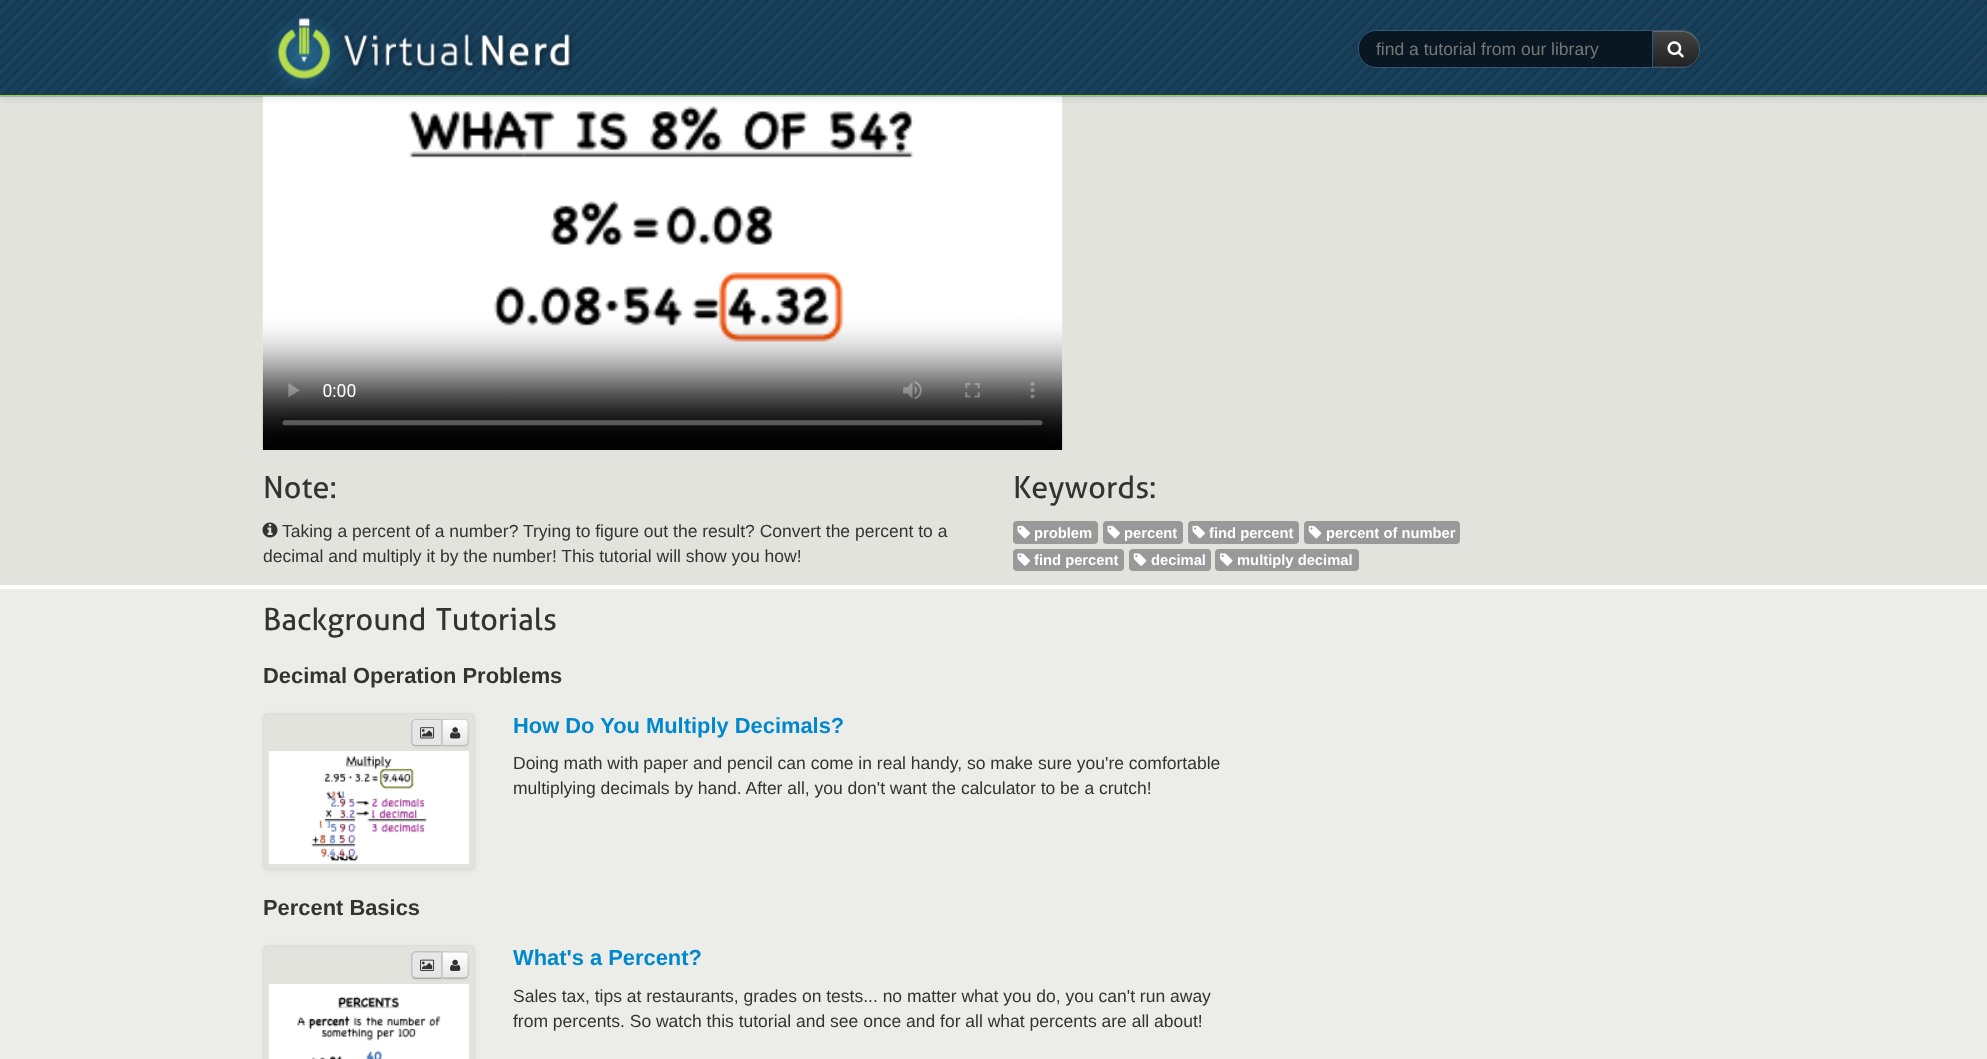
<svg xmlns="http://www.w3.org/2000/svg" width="1987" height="1059">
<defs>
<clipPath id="clip1"><rect x="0" y="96" width="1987" height="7"/></clipPath>
<clipPath id="clip2"><path d="M1651 30h31c10 0 18 8 18 18v2c0 10-8 18-18 18h-31z"/></clipPath>
<linearGradient id="g1" gradientUnits="userSpaceOnUse" x1="1676" y1="31" x2="1676" y2="66"><stop offset="0" stop-color="#444"/><stop offset="1" stop-color="#222"/></linearGradient>
<clipPath id="clip3"><path d="M441 719h23c3 0 5 2 5 5v17c0 3-2 5-5 5h-23z"/></clipPath>
<linearGradient id="g2" gradientUnits="userSpaceOnUse" x1="455" y1="720" x2="455" y2="745"><stop offset="0" stop-color="#fff"/><stop offset="1" stop-color="#e6e6e6"/></linearGradient>
<clipPath id="clip4"><path d="M441 951h23c3 0 5 2 5 5v18c0 3-2 5-5 5h-23z"/></clipPath>
<linearGradient id="g3" gradientUnits="userSpaceOnUse" x1="455" y1="953" x2="455" y2="978"><stop offset="0" stop-color="#fff"/><stop offset="1" stop-color="#e6e6e6"/></linearGradient>
</defs>
<rect width="100%" height="100%" fill="#ecede8"/>
<rect y="96" width="1987" height="489" fill="#e2e3dc"/>
<image x="262" y="96" width="801" height="354" href="media/4.png"/>
<image x="0" y="0" width="1987" height="97" href="media/1.png"/>
<g clip-path="url(#clip1)">
<rect y="1" width="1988" height="97" fill="#0000001a" filter="blur(6px)"/>
</g>
<rect y="95" width="1987" height="1" fill="#a0cc3a"/>
<image x="266" y="16" width="308" height="76" href="media/2.png"/>
<path d="M1651 30h31c10 0 18 8 18 18v2c0 10-8 18-18 18h-31z" fill="#363636"/>
<g clip-path="url(#clip2)">
<rect x="1653" y="31" width="47" height="35" fill="url(#g1)"/>
</g>
<path d="M1653 31v1h29c9 0 17 8 17 17c0-10-6-18-16-18z" fill="#ffffff33"/>
<path d="M1651.5 30.5h30.5c9.5 0 17.5 8 17.5 17.5v2c0 9.5-8 17.5-17.5 17.5h-30.5z" fill="none" stroke="#355972"/>
<path d="M1376 30.5h276.5v37h-276.5c-9.5 0-17.5-8-17.5-17.5v-2c0-9.5 8-17.5 17.5-17.5z" fill="#081721" stroke="#355972"/>
<text x="1376" y="55" style="font-family:Liberation Sans;font-size:17.5px;fill:#777">find a tutorial from our library</text>
<image x="1667" y="41" width="17" height="17" href="media/3.png"/>
<text x="263" y="498" style="font-family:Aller;font-size:30.6px;fill:#333">Note:</text>
<image x="262" y="522" width="16" height="16" href="media/5.png"/>
<text x="282" y="537" style="font-family:Liberation Sans;font-size:17.5px;fill:#333">Taking a percent of a number? Trying to figure out the result? Convert the percent to a</text>
<text x="263" y="562" style="font-family:Liberation Sans;font-size:17.5px;fill:#333">decimal and multiply it by the number! This tutorial will show you how!</text>
<text x="1013" y="498" style="font-family:Aller;font-size:30.6px;fill:#333">Keywords:</text>
<rect x="1013" y="521" width="85" height="23" rx="4" fill="#999"/>
<image x="1017" y="525" width="13" height="14" href="media/6.png"/>
<text x="1034" y="538" style="font-family:Liberation Sans;font-size:14.75px;font-weight:bold;fill:#fff">problem</text>
<rect x="1103" y="521" width="80" height="23" rx="4" fill="#999"/>
<image x="1107" y="525" width="13" height="14" href="media/6.png"/>
<text x="1124" y="538" style="font-family:Liberation Sans;font-size:14.75px;font-weight:bold;fill:#fff">percent</text>
<rect x="1188" y="521" width="111" height="23" rx="4" fill="#999"/>
<image x="1192" y="525" width="13" height="14" href="media/6.png"/>
<text x="1209" y="538" style="font-family:Liberation Sans;font-size:14.75px;font-weight:bold;fill:#fff">find percent</text>
<rect x="1304" y="521" width="156" height="23" rx="4" fill="#999"/>
<image x="1308" y="525" width="14" height="14" href="media/7.png"/>
<text x="1326" y="538" style="font-family:Liberation Sans;font-size:14.75px;font-weight:bold;fill:#fff">percent of number</text>
<rect x="1013" y="549" width="111" height="22" rx="4" fill="#999"/>
<image x="1017" y="553" width="13" height="13" href="media/8.png"/>
<text x="1034" y="565" style="font-family:Liberation Sans;font-size:14.75px;font-weight:bold;fill:#fff">find percent</text>
<rect x="1129" y="549" width="82" height="22" rx="4" fill="#999"/>
<image x="1133" y="553" width="14" height="13" href="media/9.png"/>
<text x="1151" y="565" style="font-family:Liberation Sans;font-size:14.75px;font-weight:bold;fill:#fff">decimal</text>
<rect x="1215" y="549" width="144" height="22" rx="4" fill="#999"/>
<image x="1220" y="553" width="13" height="13" href="media/10.png"/>
<text x="1237" y="565" style="font-family:Liberation Sans;font-size:14.75px;font-weight:bold;fill:#fff">multiply decimal</text>
<rect y="585" width="1987" height="4" fill="#fff"/>
<text x="263" y="630" word-spacing="2" style="font-family:Aller;font-size:30.6px;fill:#333">Background Tutorials</text>
<text x="263" y="683" style="font-family:Liberation Sans;font-size:21.9px;font-weight:bold;fill:#333">Decimal Operation Problems</text>
<rect x="263" y="714" width="212" height="157" rx="5" fill="#0000000f" filter="blur(2px)"/>
<rect x="263.5" y="713.5" width="211" height="156" rx="4.5" fill="#e2e3dc" stroke="#ddd"/>
<rect x="269" y="751" width="200" height="113" fill="#fff"/>
<rect x="441" y="720" width="28" height="28" rx="5" fill="#0000000d" filter="blur(1px)"/>
<path d="M441 719h23c3 0 5 2 5 5v17c0 3-2 5-5 5h-23z" fill="#f5f5f5"/>
<g clip-path="url(#clip3)">
<rect x="443" y="720" width="26" height="25" fill="url(#g2)"/>
</g>
<path d="M442.5 720h21.5c1 0 2 .5 2.5 1l1-1c-1-.5-2.5-1-3.5-1h-22.5z" fill="#00000026"/>
<path d="M467.5 720c.5 1 1 1.5 1.5 2.5v20c-.5 1-1 1.5-1.5 2.5l-1-1c.5-.5 1-1.5 1-3v-17c0-1.5-.5-2.5-1-3z" fill="#00000026"/>
<path d="M467.5 745c-1 .5-2.5 1-3.5 1h-22.5l1-1h21.5c1 0 2-.5 2.5-1z" fill="#00000040"/>
<image x="268" y="751" width="159" height="113" href="media/13.png"/>
<rect x="411" y="720" width="32" height="28" rx="5" fill="#0000000d" filter="blur(1px)"/>
<path d="M416 719h27v27h-27c-3 0-5-2-5-5v-17c0-3 2-5 5-5z" fill="#e6e6e6"/>
<path d="M416 719c-1 0-2.5 .5-3.5 1l1 1c.5-.5 1.5-1 2.5-1h25l1-1z" fill="#00000026"/>
<path d="M442.5 746v-27h-.5l-1 1v25z" fill="#00000026"/>
<path d="M442 746h-26c-1 0-2.5-.5-3.5-1l1-1c.5 .5 1.5 1 2.5 1h25z" fill="#00000040"/>
<path d="M411 722.5l1.5-2.5l1 1c-.5 .5-1 1.5-1 3v17c0 1.5 .5 2.5 1 3l-1 1l-1.5-2.5z" fill="#00000026"/>
<image x="420" y="727" width="15" height="12" href="media/11.png"/>
<image x="450" y="727" width="11" height="12" href="media/12.png"/>
<text x="513" y="733" style="font-family:Liberation Sans;font-size:21.9px;font-weight:bold;fill:#08c">How Do You Multiply Decimals?</text>
<text x="513" y="769" style="font-family:Liberation Sans;font-size:17.5px;fill:#333">Doing math with paper and pencil can come in real handy, so make sure you're comfortable</text>
<text x="513" y="794" style="font-family:Liberation Sans;font-size:17.5px;fill:#333">multiplying decimals by hand. After all, you don't want the calculator to be a crutch!</text>
<text x="263" y="915" style="font-family:Liberation Sans;font-size:21.9px;font-weight:bold;fill:#333">Percent Basics</text>
<rect x="263" y="946" width="212" height="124" rx="5" fill="#0000000f" filter="blur(2px)"/>
<rect x="263.5" y="945.5" width="211" height="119" rx="4.5" fill="#e2e3dc" stroke="#ddd"/>
<rect x="441" y="953" width="28" height="27" rx="5" fill="#0000000d" filter="blur(1px)"/>
<path d="M441 951h23c3 0 5 2 5 5v18c0 3-2 5-5 5h-23z" fill="#f5f5f5"/>
<g clip-path="url(#clip4)">
<rect x="443" y="953" width="26" height="25" fill="url(#g3)"/>
</g>
<path d="M442.5 952.5l-1.5-1.5h24.5l2 1.5l-1 1c-.5-.5-1.5-1-2.5-1z" fill="#00000026"/>
<path d="M469 975.5l-1.5 2l-1-1c.5-.5 1-1.5 1-2.5v-18c0-1-.5-2-1-2.5l1-1l1.5 2z" fill="#00000026"/>
<path d="M467.5 977.5l-2 1.5h-24.5l1.5-1.5h21.5c1 0 2-.5 2.5-1z" fill="#00000040"/>
<rect x="411" y="953" width="32" height="27" rx="5" fill="#0000000d" filter="blur(1px)"/>
<path d="M416 951h27v28h-27c-3 0-5-2-5-5v-18c0-3 2-5 5-5z" fill="#e6e6e6"/>
<path d="M416 952.5c-1 0-2 .5-2.5 1l-1-1l2-1.5h28l-1.5 2v-.5z" fill="#00000026"/>
<path d="M442.5 951l-1.5 2v24l1.5 2z" fill="#00000026"/>
<path d="M442.5 979h-28l-2-1.5l1-1c.5 .5 1.5 1 2.5 1h25v-.5z" fill="#00000040"/>
<path d="M411 954.5l1.5-2l1 1c-.5 .5-1 1.5-1 2.5v18c0 1 .5 2 1 2.5l-1 1l-1.5-2z" fill="#00000026"/>
<image x="420" y="959" width="15" height="12" href="media/14.png"/>
<image x="450" y="959" width="11" height="12" href="media/15.png"/>
<image x="268" y="984" width="173" height="75" href="media/16.png"/>
<rect x="441" y="984" width="28" height="75" fill="#fff"/>
<text x="513" y="965" style="font-family:Liberation Sans;font-size:21.9px;font-weight:bold;fill:#08c">What's a Percent?</text>
<text x="513" y="1002" style="font-family:Liberation Sans;font-size:17.5px;fill:#333">Sales tax, tips at restaurants, grades on tests... no matter what you do, you can't run away</text>
<text x="513" y="1027" style="font-family:Liberation Sans;font-size:17.5px;fill:#333">from percents. So watch this tutorial and see once and for all what percents are all about!</text>
</svg>
